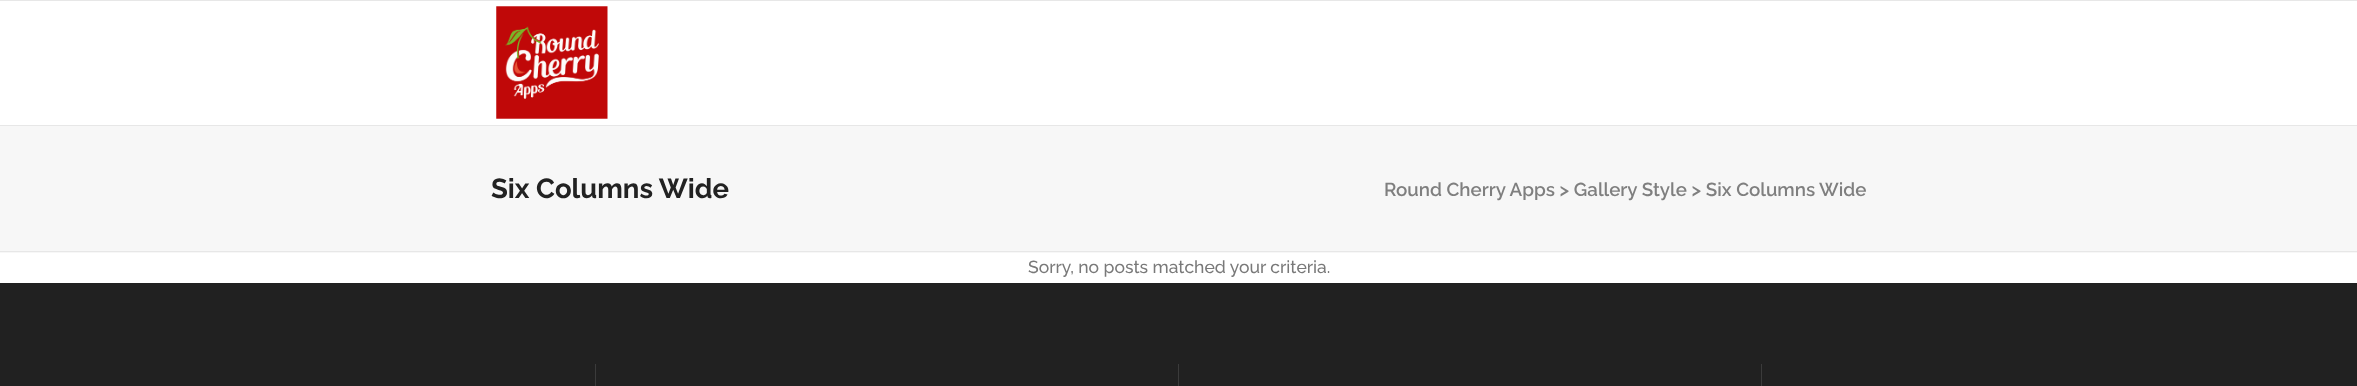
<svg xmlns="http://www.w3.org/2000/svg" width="2357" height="386">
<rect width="100%" height="100%" fill="#fff"/>
<rect width="2357" height="1" fill="#e7e7e7"/>
<image x="496" y="6" width="112" height="113" href="media/1.png"/>
<rect y="126" width="2357" height="127" fill="#f7f7f7"/>
<rect y="125" width="2357" height="1" fill="#e7e7e7"/>
<rect y="251" width="2357" height="1" fill="#e7e7e7"/>
<text x="491" y="198" style="font-family:Raleway;font-size:27.5px;font-weight:bold;fill:#222">Six Columns Wide</text>
<text x="1384" y="196" style="font-family:Raleway;font-size:18.75px;font-weight:600;fill:#7f7f7f">Round Cherry Apps &gt; Gallery Style &gt; Six Columns Wide</text>
<text x="1028" y="273" style="font-family:Raleway;font-size:17.5px;font-weight:500;fill:#797979">Sorry, no posts matched your criteria.</text>
<rect y="283" width="2357" height="103" fill="#212121"/>
<rect x="595" y="364" width="1" height="22" fill="#3b3b3b"/>
<rect x="1178" y="364" width="1" height="22" fill="#3b3b3b"/>
<rect x="1761" y="364" width="1" height="22" fill="#3b3b3b"/>
</svg>
